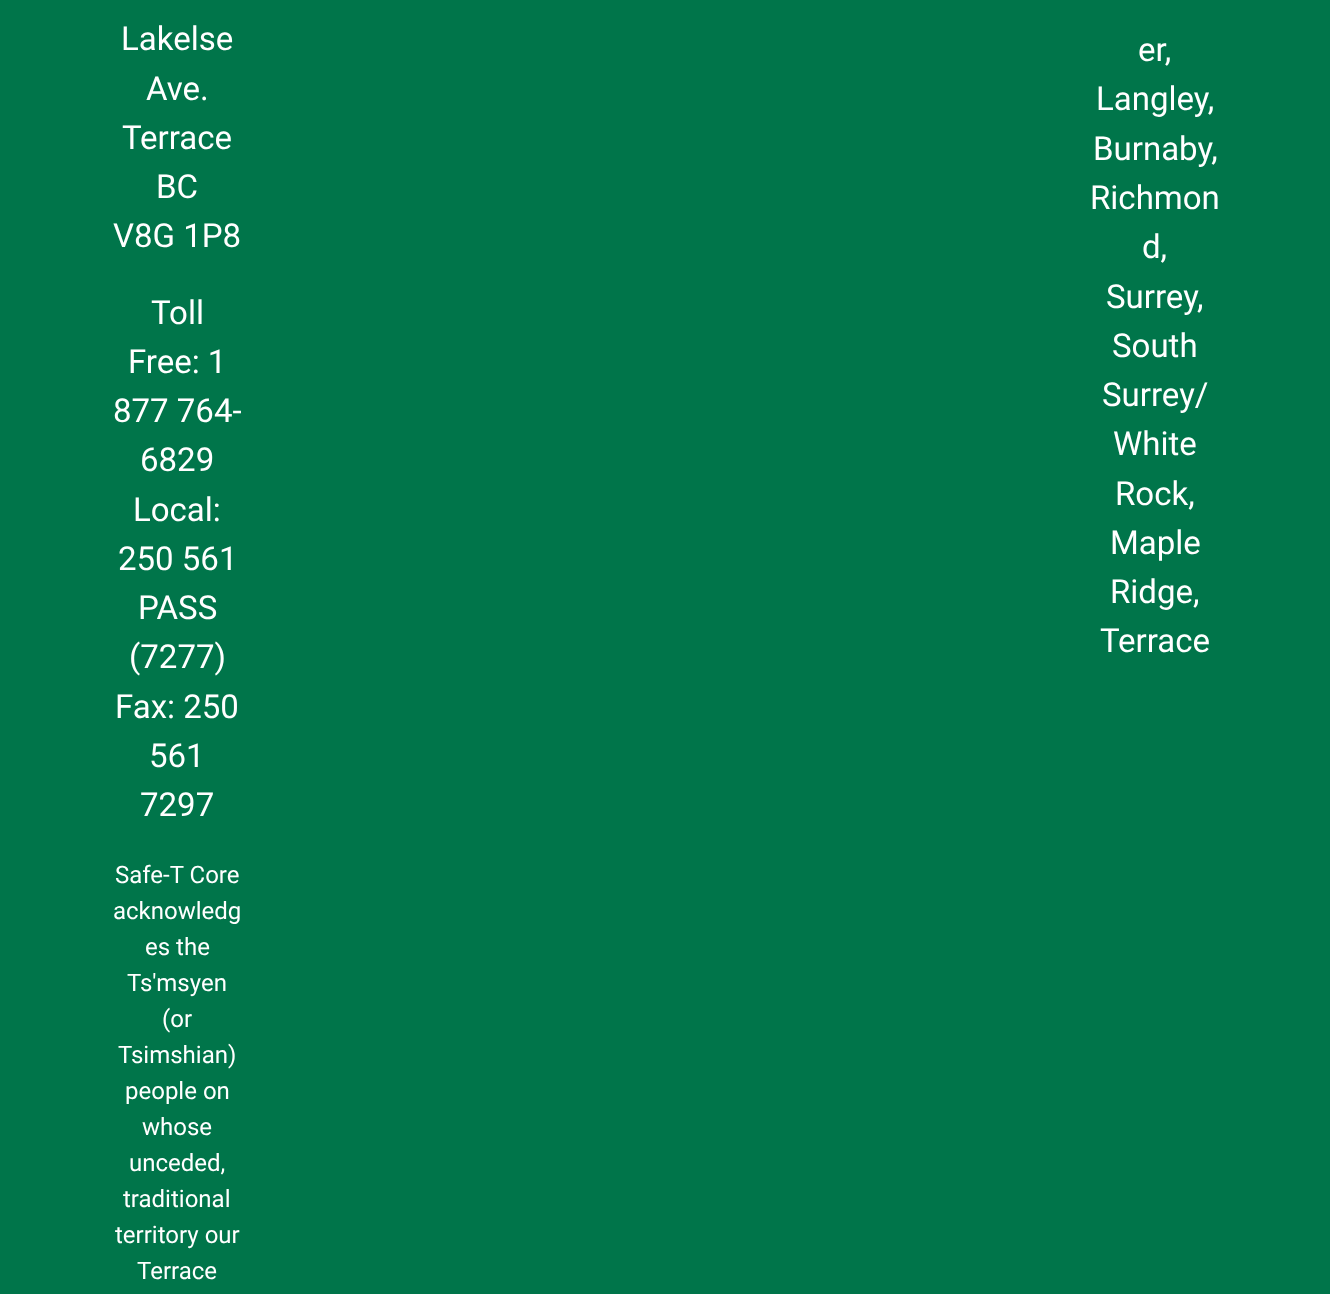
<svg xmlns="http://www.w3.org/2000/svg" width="1330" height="1294">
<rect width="100%" height="100%" fill="#00754a"/>
<text x="121" y="50" style="font-family:Roboto;font-size:33px;fill:#fff">Lakelse</text>
<text x="146" y="100" style="font-family:Roboto;font-size:33px;fill:#fff">Ave.</text>
<text x="122" y="149" style="font-family:Roboto;font-size:33px;fill:#fff">Terrace</text>
<text x="156" y="198" style="font-family:Roboto;font-size:33px;fill:#fff">BC</text>
<text x="113" y="247" style="font-family:Roboto;font-size:33px;fill:#fff">V8G 1P8</text>
<text x="151" y="324" style="font-family:Roboto;font-size:33px;fill:#fff">Toll</text>
<text x="128" y="373" style="font-family:Roboto;font-size:33px;fill:#fff">Free: 1</text>
<text x="113" y="422" style="font-family:Roboto;font-size:33px;fill:#fff">877 764-</text>
<text x="140" y="471" style="font-family:Roboto;font-size:33px;fill:#fff">6829</text>
<text x="133" y="521" style="font-family:Roboto;font-size:33px;fill:#fff">Local:</text>
<text x="118" y="570" style="font-family:Roboto;font-size:33px;fill:#fff">250 561</text>
<text x="138" y="619" style="font-family:Roboto;font-size:33px;fill:#fff">PASS</text>
<text x="129" y="668" style="font-family:Roboto;font-size:33px;fill:#fff">(7277)</text>
<text x="115" y="718" style="font-family:Roboto;font-size:33px;fill:#fff">Fax: 250</text>
<text x="149" y="767" style="font-family:Roboto;font-size:33px;fill:#fff">561</text>
<text x="140" y="816" style="font-family:Roboto;font-size:33px;fill:#fff">7297</text>
<text x="115" y="883" style="font-family:Roboto;font-size:24px;fill:#fff">Safe-T Core</text>
<text x="113" y="919" style="font-family:Roboto;font-size:24px;fill:#fff">acknowledg</text>
<text x="145" y="955" style="font-family:Roboto;font-size:24px;fill:#fff">es the</text>
<text x="127" y="991" style="font-family:Roboto;font-size:24px;fill:#fff">Ts'msyen</text>
<text x="162" y="1027" style="font-family:Roboto;font-size:24px;fill:#fff">(or</text>
<text x="118" y="1063" style="font-family:Roboto;font-size:24px;fill:#fff">Tsimshian)</text>
<text x="125" y="1099" style="font-family:Roboto;font-size:24px;fill:#fff">people on</text>
<text x="142" y="1135" style="font-family:Roboto;font-size:24px;fill:#fff">whose</text>
<text x="129" y="1171" style="font-family:Roboto;font-size:24px;fill:#fff">unceded,</text>
<text x="123" y="1207" style="font-family:Roboto;font-size:24px;fill:#fff">traditional</text>
<text x="115" y="1243" style="font-family:Roboto;font-size:24px;fill:#fff">territory our</text>
<text x="137" y="1279" style="font-family:Roboto;font-size:24px;fill:#fff">Terrace</text>
<text x="1138" y="61" style="font-family:Roboto;font-size:33px;fill:#fff">er,</text>
<text x="1096" y="110" style="font-family:Roboto;font-size:33px;fill:#fff">Langley,</text>
<text x="1093" y="160" style="font-family:Roboto;font-size:33px;fill:#fff">Burnaby,</text>
<text x="1090" y="209" style="font-family:Roboto;font-size:33px;fill:#fff">Richmon</text>
<text x="1142" y="258" style="font-family:Roboto;font-size:33px;fill:#fff">d,</text>
<text x="1106" y="308" style="font-family:Roboto;font-size:33px;fill:#fff">Surrey,</text>
<text x="1112" y="357" style="font-family:Roboto;font-size:33px;fill:#fff">South</text>
<text x="1102" y="406" style="font-family:Roboto;font-size:33px;fill:#fff">Surrey/</text>
<text x="1113" y="455" style="font-family:Roboto;font-size:33px;fill:#fff">White</text>
<text x="1115" y="505" style="font-family:Roboto;font-size:33px;fill:#fff">Rock,</text>
<text x="1110" y="554" style="font-family:Roboto;font-size:33px;fill:#fff">Maple</text>
<text x="1110" y="603" style="font-family:Roboto;font-size:33px;fill:#fff">Ridge,</text>
<text x="1100" y="652" style="font-family:Roboto;font-size:33px;fill:#fff">Terrace</text>
</svg>
